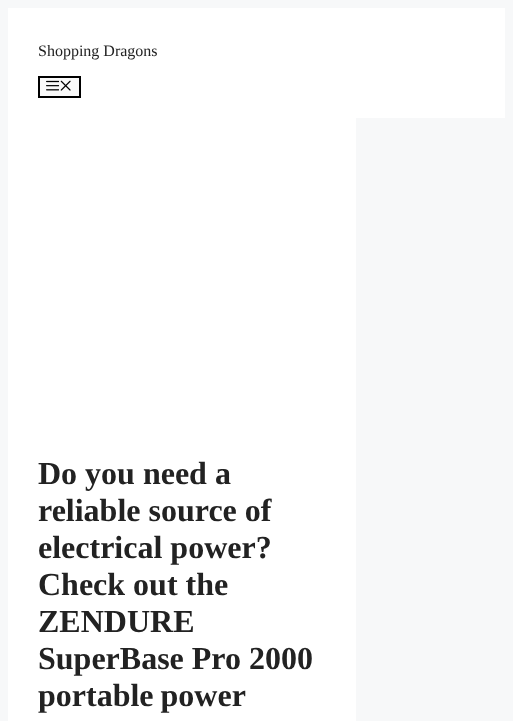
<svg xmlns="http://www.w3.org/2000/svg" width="513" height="721">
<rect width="100%" height="100%" fill="#f7f8f9"/>
<rect x="8" y="8" width="497" height="110" fill="#fff"/>
<text x="38" y="56" style="font-family:Liberation Serif;font-size:16px;fill:#222">Shopping Dragons</text>
<rect x="39" y="77" width="41" height="20" fill="#fafafa" stroke="#000" stroke-width="2"/>
<image x="46" y="80" width="13" height="11" href="media/1.png"/>
<image x="60" y="80" width="11" height="11" href="media/2.png"/>
<rect x="8" y="118" width="348" height="603" fill="#fff"/>
<text x="38" y="484" style="font-family:Liberation Serif;font-size:32px;font-weight:bold;fill:#222">Do you need a</text>
<text x="38" y="521" style="font-family:Liberation Serif;font-size:32px;font-weight:bold;fill:#222">reliable source of</text>
<text x="38" y="558" style="font-family:Liberation Serif;font-size:32px;font-weight:bold;fill:#222">electrical power?</text>
<text x="38" y="595" style="font-family:Liberation Serif;font-size:32px;font-weight:bold;fill:#222">Check out the</text>
<text x="38" y="632" style="font-family:Liberation Serif;font-size:32px;font-weight:bold;fill:#222">ZENDURE</text>
<text x="38" y="669" style="font-family:Liberation Serif;font-size:32px;font-weight:bold;fill:#222">SuperBase Pro 2000</text>
<text x="38" y="706" word-spacing="-1" style="font-family:Liberation Serif;font-size:32px;font-weight:bold;fill:#222">portable power</text>
</svg>
